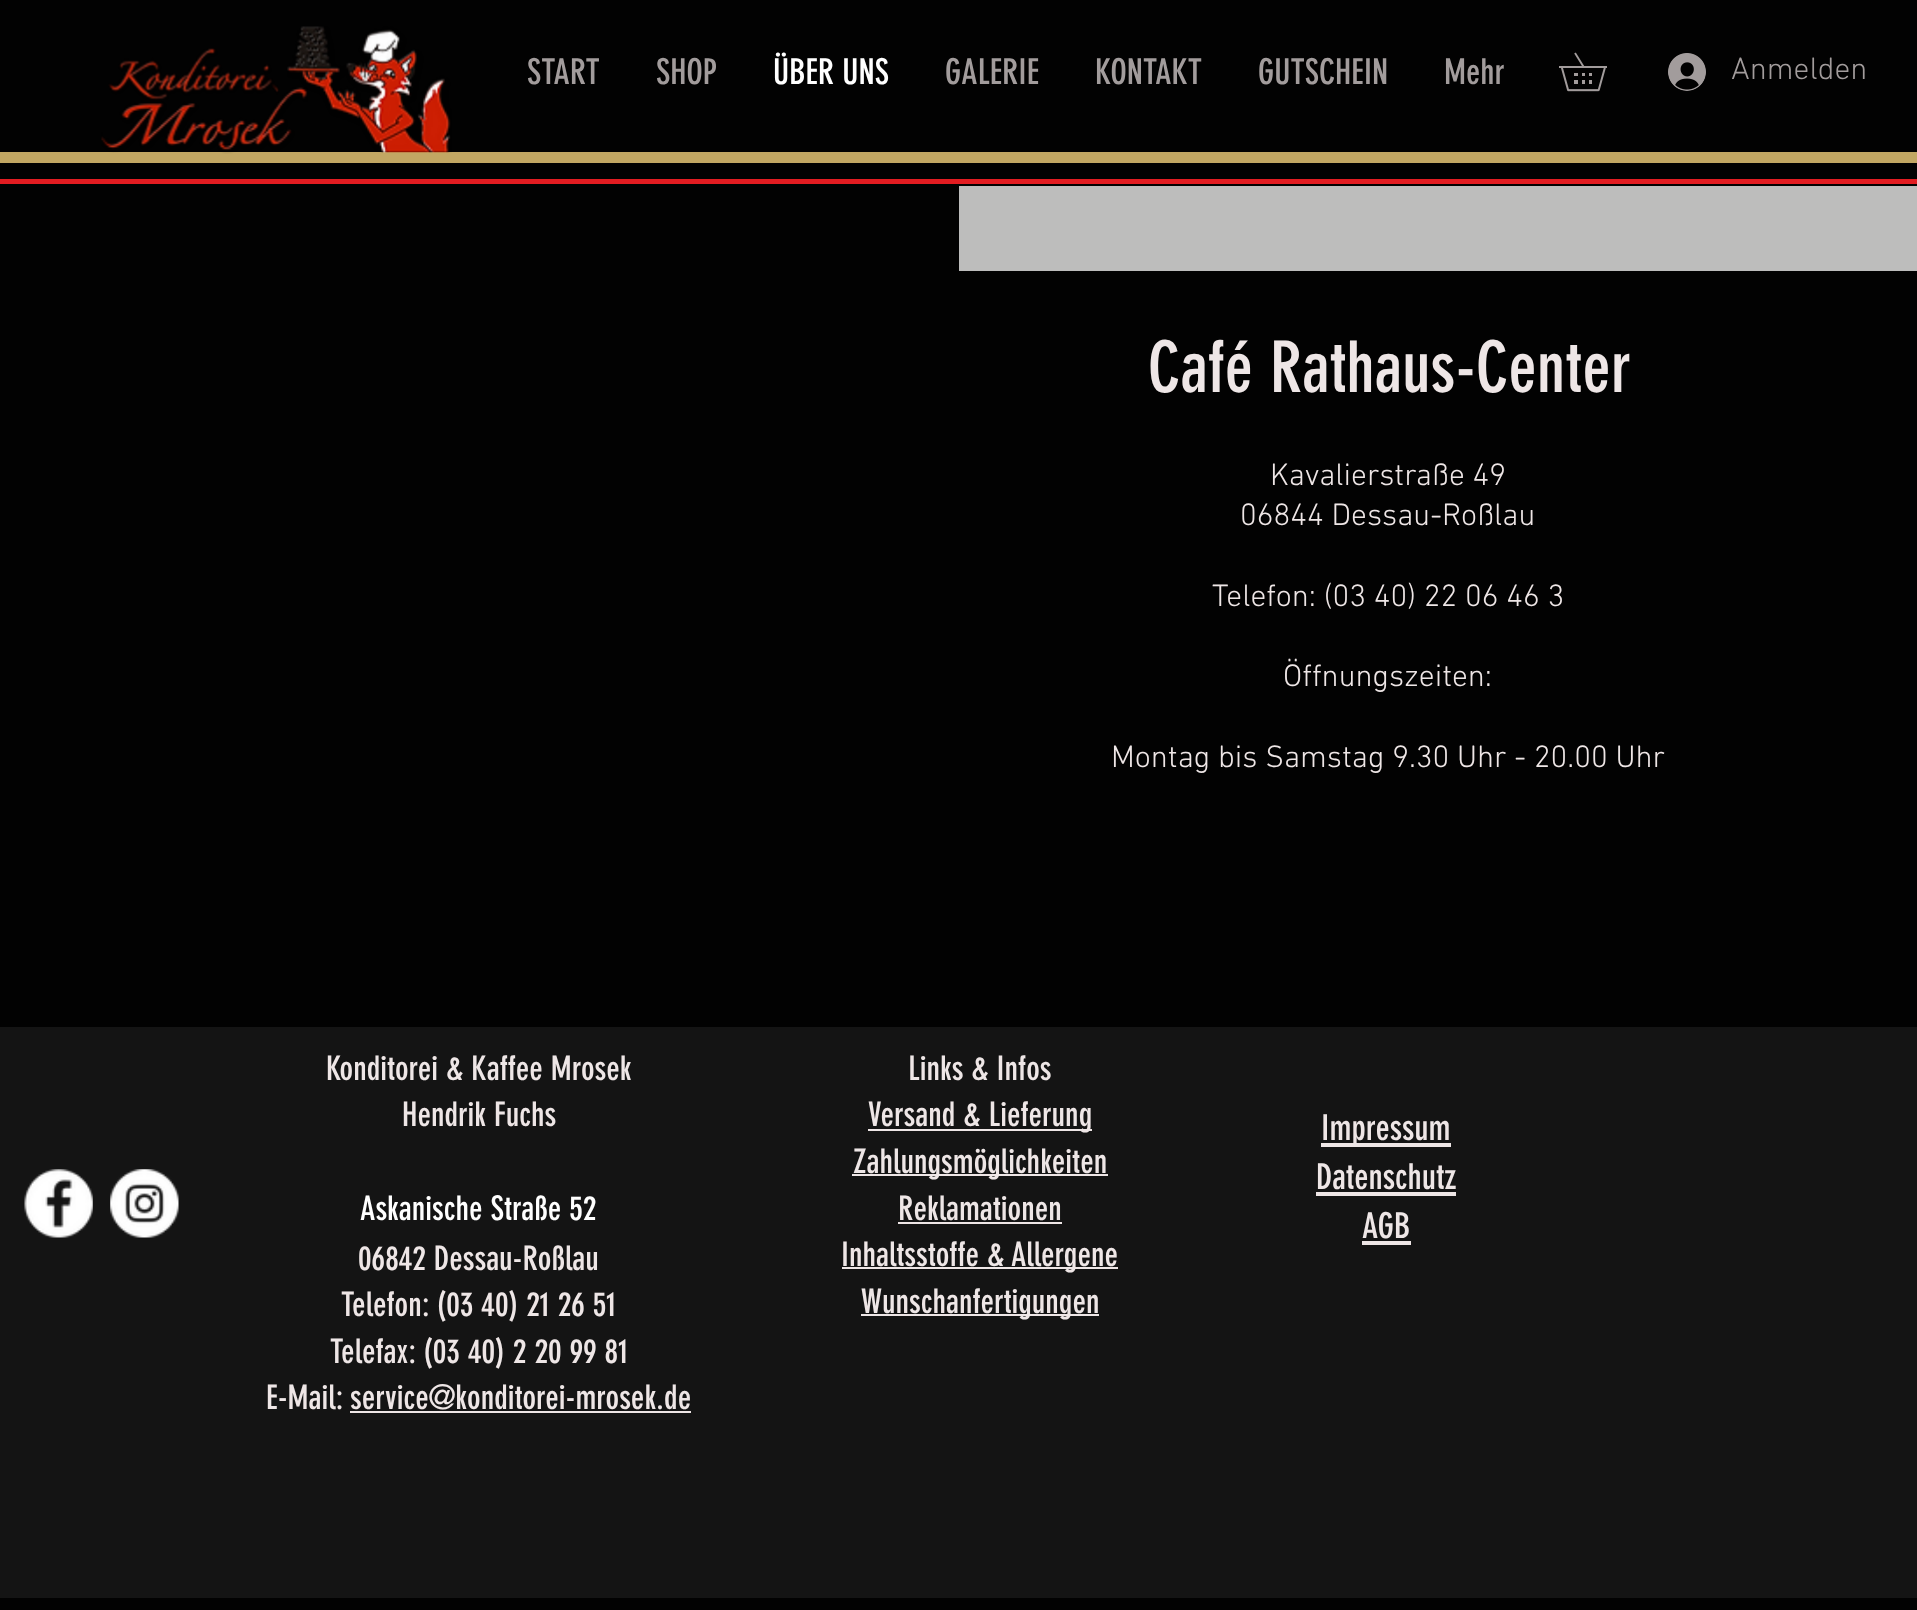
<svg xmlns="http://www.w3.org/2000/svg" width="1917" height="1610">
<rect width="100%" height="100%" fill="#020202"/>
<image x="108" y="48" width="171" height="52" href="media/1.png"/>
<rect y="152" width="1917" height="11" fill="#c2a763"/>
<image x="101" y="87" width="207" height="67" href="media/3.png"/>
<image x="287" y="26" width="165" height="127" href="media/2.png"/>
<text x="527" y="84" style="font-family:'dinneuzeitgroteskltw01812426';font-size:35px;fill:#a29c9c">START</text>
<text x="656" y="84" style="font-family:'dinneuzeitgroteskltw01812426';font-size:35px;fill:#a29c9c">SHOP</text>
<text x="773" y="84" style="font-family:'dinneuzeitgroteskltw01812426';font-size:35px;fill:#fff">ÜBER UNS</text>
<text x="945" y="84" style="font-family:'dinneuzeitgroteskltw01812426';font-size:35px;fill:#a29c9c">GALERIE</text>
<text x="1095" y="84" style="font-family:'dinneuzeitgroteskltw01812426';font-size:35px;fill:#a29c9c">KONTAKT</text>
<text x="1258" y="84" style="font-family:'dinneuzeitgroteskltw01812426';font-size:35px;fill:#a29c9c">GUTSCHEIN</text>
<text x="1444" y="84" style="font-family:'dinneuzeitgroteskltw01812426';font-size:35px;fill:#a29c9c">Mehr</text>
<image x="1559" y="52" width="48" height="40" href="media/4.png"/>
<image x="1668" y="53" width="38" height="38" href="media/5.png"/>
<text x="1731" y="79" style="font-family:'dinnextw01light';font-size:31.5px;font-weight:300;fill:#a29c9c">Anmelden</text>
<rect y="179" width="1917" height="5" fill="#e21c21"/>
<rect x="959" y="186" width="958" height="85" fill="#bdbdbc"/>
<text x="1148" y="392" style="font-family:'dinneuzeitgroteskltw01812426';font-size:70px;fill:#eee6e6">Café Rathaus-Center</text>
<text x="1270" y="485" style="font-family:'dinnextw01light';font-size:31.5px;font-weight:300;fill:#eee6e6">Kavalierstraße 49</text>
<text x="1240" y="525" style="font-family:'dinnextw01light';font-size:31.5px;font-weight:300;fill:#eee6e6">06844 Dessau-Roßlau</text>
<text x="1212" y="606" style="font-family:'dinnextw01light';font-size:31.5px;font-weight:300;fill:#eee6e6">Telefon: (03 40) 22 06 46 3</text>
<text x="1283" y="686" style="font-family:'dinnextw01light';font-size:31.5px;font-weight:300;fill:#eee6e6">Öffnungszeiten:</text>
<text x="1111" y="767" style="font-family:'dinnextw01light';font-size:31.5px;font-weight:300;fill:#eee6e6">Montag bis Samstag 9.30 Uhr - 20.00 Uhr</text>
<rect y="1027" width="1917" height="571" fill="#141414"/>
<image x="24" y="1169" width="69" height="69" href="media/6.png"/>
<image x="110" y="1169" width="69" height="69" href="media/7.png"/>
<text x="326" y="1080" style="font-family:'dinneuzeitgroteskltw01812426';font-size:33.25px;fill:#eee6e6">Konditorei &amp; Kaffee Mrosek</text>
<text x="402" y="1126" style="font-family:'dinneuzeitgroteskltw01812426';font-size:33.25px;fill:#eee6e6">Hendrik Fuchs</text>
<text x="360" y="1220" style="font-family:'dinneuzeitgroteskltw01812426';font-size:33.25px;fill:#fff">Askanische Straße 52</text>
<text x="358" y="1270" style="font-family:'dinneuzeitgroteskltw01812426';font-size:33.25px;fill:#eee6e6">06842 Dessau-Roßlau</text>
<text x="341" y="1316" style="font-family:'dinneuzeitgroteskltw01812426';font-size:33.25px;fill:#eee6e6">Telefon: (03 40) 21 26 51</text>
<text x="330" y="1363" style="font-family:'dinneuzeitgroteskltw01812426';font-size:33.25px;fill:#eee6e6">Telefax: (03 40) 2 20 99 81</text>
<text x="266" y="1409" style="font-family:'dinneuzeitgroteskltw01812426';font-size:33.25px;fill:#eee6e6">E-Mail:</text>
<text x="350" y="1409" style="font-family:'dinneuzeitgroteskltw01812426';font-size:33.25px;fill:#eee6e6">service@konditorei-mrosek.de</text>
<rect x="350" y="1411" width="341" height="2" fill="#eee6e6"/>
<text x="908" y="1080" style="font-family:'dinneuzeitgroteskltw01812426';font-size:33.25px;fill:#eee6e6">Links &amp; Infos</text>
<rect x="868" y="1129" width="224" height="2" fill="#eee6e6"/>
<text x="868" y="1126" style="font-family:'dinneuzeitgroteskltw01812426';font-size:33.25px;fill:#eee6e6">Versand &amp; Lieferung</text>
<rect x="852" y="1174" width="256" height="2" fill="#eee6e6"/>
<text x="853" y="1173" style="font-family:'dinneuzeitgroteskltw01812426';font-size:33.25px;fill:#eee6e6">Zahlungsmöglichkeiten</text>
<text x="898" y="1220" style="font-family:'dinneuzeitgroteskltw01812426';font-size:33.25px;fill:#eee6e6">Reklamationen</text>
<rect x="898" y="1222" width="164" height="2" fill="#eee6e6"/>
<rect x="842" y="1267" width="276" height="2" fill="#eee6e6"/>
<text x="841" y="1266" style="font-family:'dinneuzeitgroteskltw01812426';font-size:33.25px;fill:#eee6e6">Inhaltsstoffe &amp; Allergene</text>
<rect x="861" y="1314" width="238" height="2" fill="#eee6e6"/>
<text x="861" y="1313" style="font-family:'dinneuzeitgroteskltw01812426';font-size:33.25px;fill:#eee6e6">Wunschanfertigungen</text>
<rect x="1321" y="1143" width="130" height="4" fill="#eee6e6"/>
<text x="1321" y="1140" style="font-family:'dinneuzeitgroteskltw01812426';font-size:35px;fill:#eee6e6">Impressum</text>
<text x="1316" y="1189" style="font-family:'dinneuzeitgroteskltw01812426';font-size:35px;fill:#eee6e6">Datenschutz</text>
<rect x="1316" y="1192" width="140" height="4" fill="#eee6e6"/>
<text x="1362" y="1238" style="font-family:'dinneuzeitgroteskltw01812426';font-size:35px;fill:#eee6e6">AGB</text>
<rect x="1362" y="1241" width="49" height="4" fill="#eee6e6"/>
</svg>
